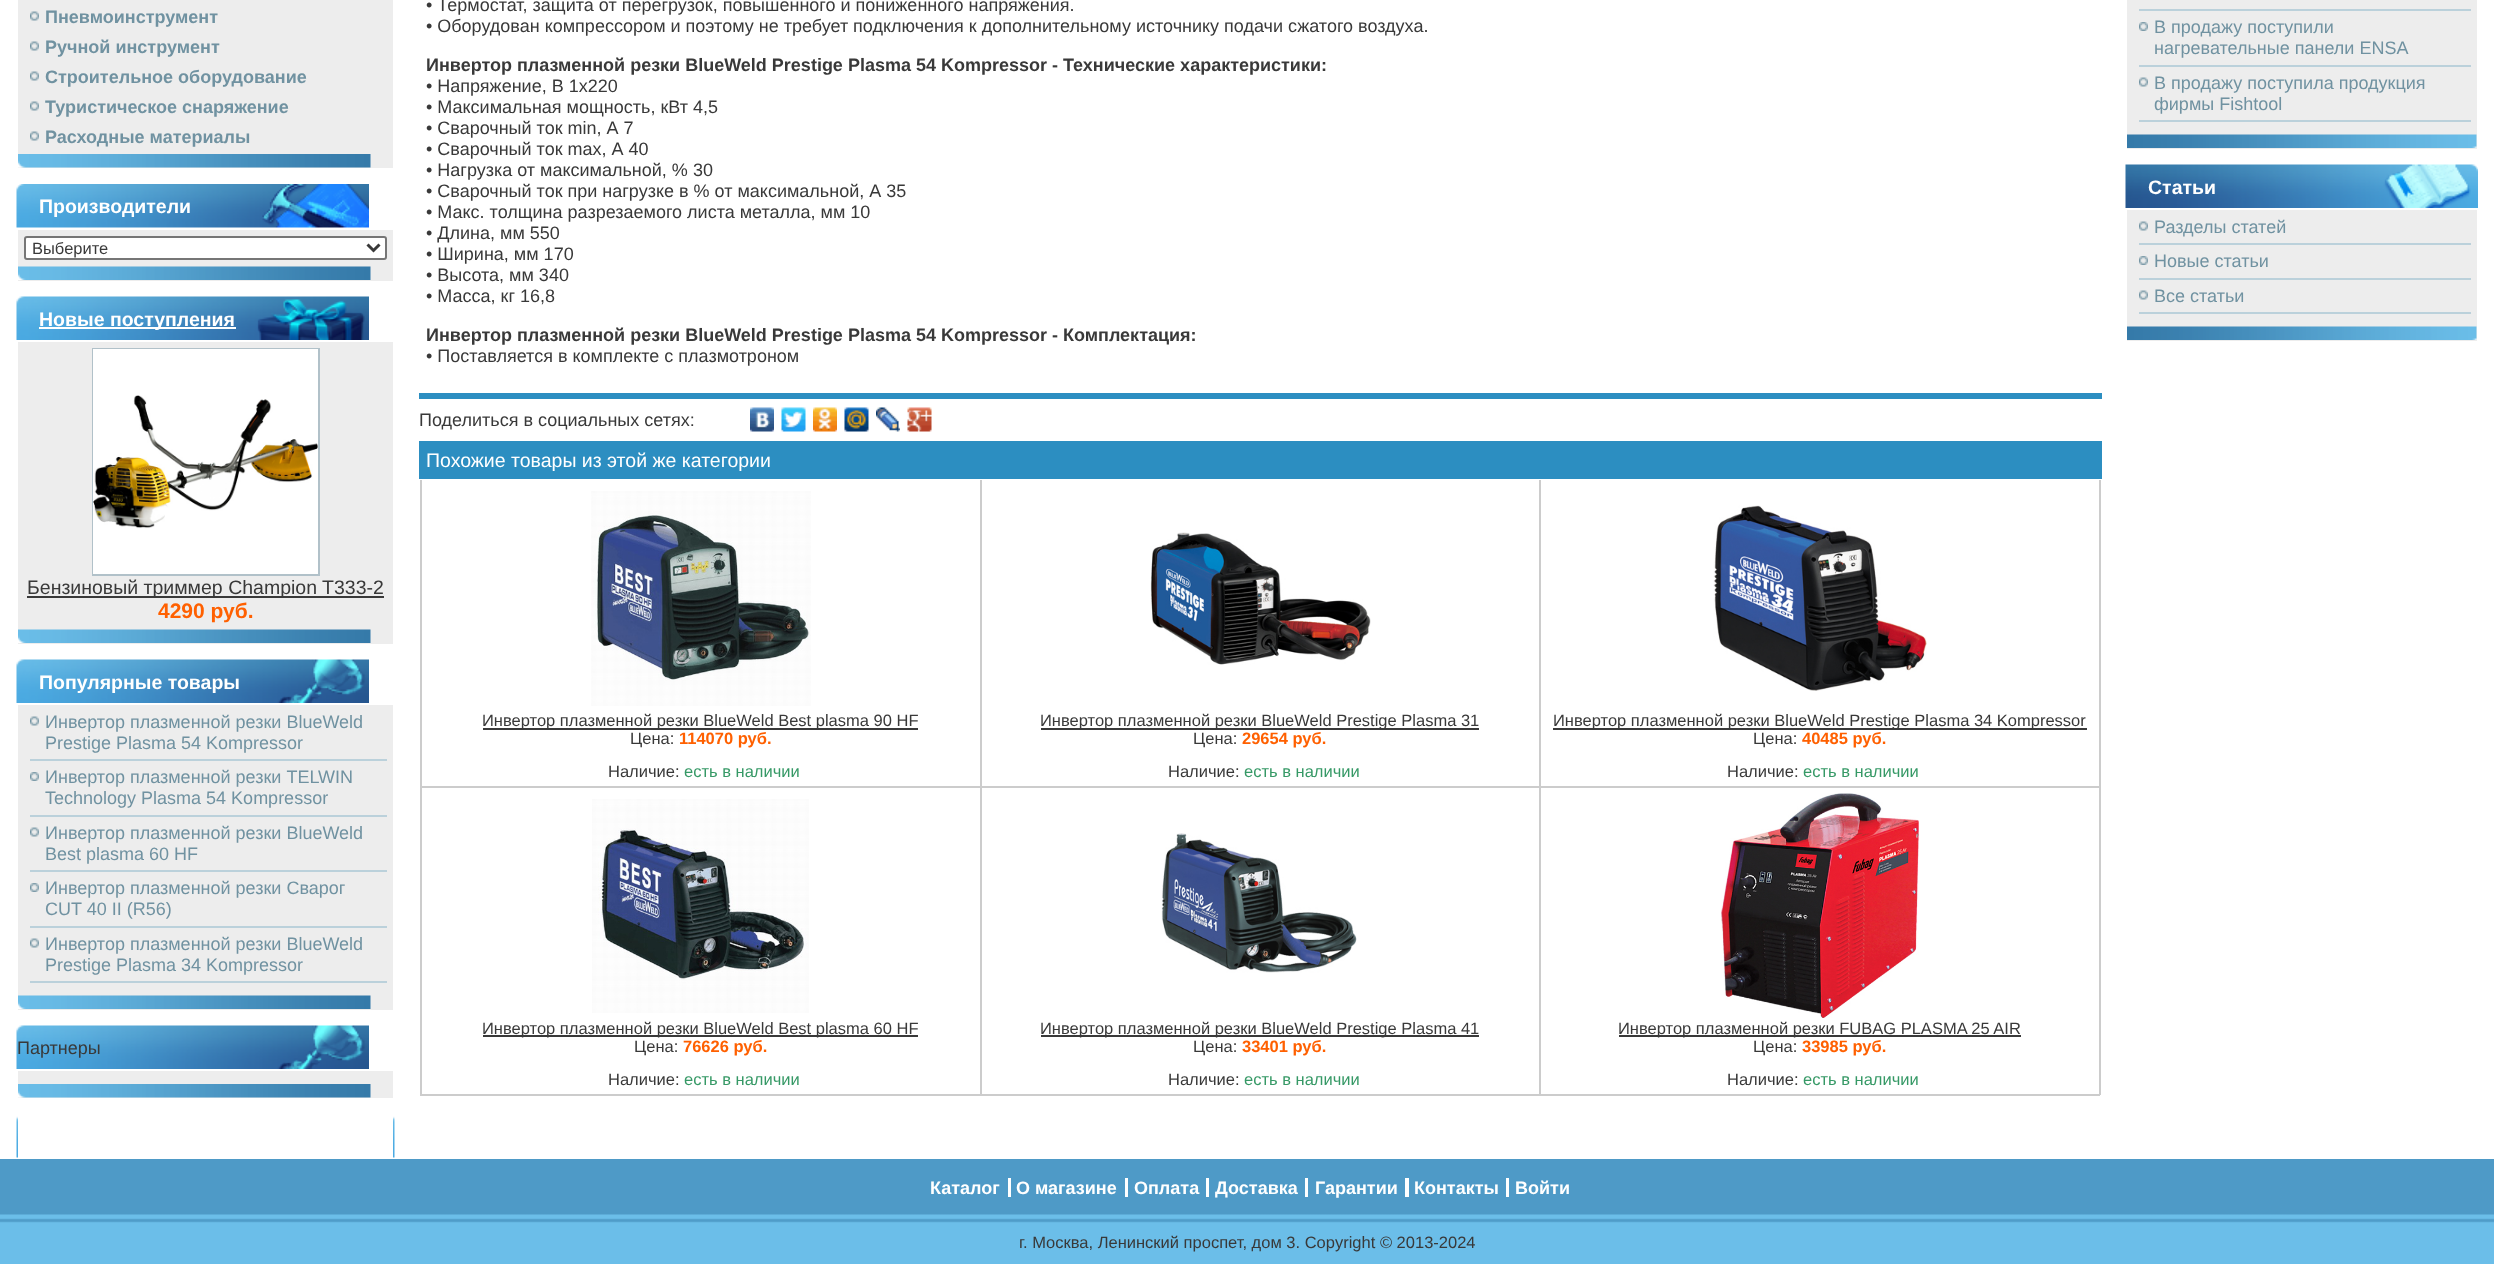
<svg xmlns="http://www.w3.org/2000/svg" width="2494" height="1264">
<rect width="100%" height="100%" fill="#fff"/>
<rect x="18" width="375" height="168" fill="#ededed"/>
<image x="18" y="154" width="353" height="14" href="media/1.png"/>
<image x="30" y="11" width="9" height="10" href="media/2.png"/>
<text x="45" y="23" style="font-family:Liberation Sans;font-size:18px;font-weight:bold;fill:#7092a1">Пневмоинструмент</text>
<image x="30" y="41" width="9" height="10" href="media/2.png"/>
<text x="45" y="53" style="font-family:Liberation Sans;font-size:18px;font-weight:bold;fill:#7092a1">Ручной инcтрумент</text>
<image x="30" y="71" width="9" height="10" href="media/2.png"/>
<text x="45" y="83" style="font-family:Liberation Sans;font-size:18px;font-weight:bold;fill:#7092a1">Строительное оборудование</text>
<image x="30" y="101" width="9" height="10" href="media/2.png"/>
<text x="45" y="113" style="font-family:Liberation Sans;font-size:18px;font-weight:bold;fill:#7092a1">Туристическое снаряжение</text>
<image x="30" y="131" width="9" height="10" href="media/2.png"/>
<text x="45" y="143" style="font-family:Liberation Sans;font-size:18px;font-weight:bold;fill:#7092a1">Расходные материалы</text>
<image x="16" y="184" width="353" height="44" href="media/3.png"/>
<text x="39" y="213" style="font-family:Liberation Sans;font-size:19.5px;font-weight:bold;fill:#fff">Производители</text>
<rect x="18" y="230" width="375" height="51" fill="#ededed"/>
<image x="18" y="266" width="353" height="14" href="media/4.png"/>
<rect x="25" y="237" width="361" height="22" rx="2" fill="#fff" stroke="#767676" stroke-width="2"/>
<path d="M367.5 244.5l6 6l6-6" fill="none" stroke="#393939" stroke-width="3"/>
<text x="32" y="254" style="font-family:Liberation Sans;font-size:16.5px;fill:#393939">Выберите</text>
<image x="16" y="296" width="353" height="44" href="media/5.png"/>
<rect x="39" y="327" width="197" height="2" fill="#fff"/>
<text x="39" y="326" style="font-family:Liberation Sans;font-size:19.5px;font-weight:bold;fill:#fff">Новые поступления</text>
<rect x="18" y="342" width="375" height="302" fill="#ededed"/>
<image x="18" y="629" width="353" height="14" href="media/4.png"/>
<rect x="93" y="349" width="226" height="226" fill="none" stroke="#b1c1c9" stroke-width="2"/>
<image x="93" y="349" width="225" height="225" href="media/6.png"/>
<rect x="27" y="596" width="357" height="2" fill="#393939"/>
<text x="27" y="594" style="font-family:Liberation Sans;font-size:19.5px;fill:#393939">Бензиновый триммер Champion T333-2</text>
<text x="158" y="618" style="font-family:Liberation Sans;font-size:21px;font-weight:bold;fill:#ff6000">4290 руб.</text>
<image x="16" y="659" width="353" height="44" href="media/7.png"/>
<text x="39" y="689" style="font-family:Liberation Sans;font-size:19.5px;font-weight:bold;fill:#fff">Популярные товары</text>
<rect x="18" y="705" width="375" height="305" fill="#ededed"/>
<image x="18" y="995" width="353" height="14" href="media/4.png"/>
<image x="30" y="716" width="9" height="10" href="media/2.png"/>
<rect x="30" y="759" width="357" height="2" fill="#bbd1db"/>
<text x="45" y="728" style="font-family:Liberation Sans;font-size:18px;fill:#7092a1">Инвертор плазменной резки BlueWeld</text>
<text x="45" y="749" style="font-family:Liberation Sans;font-size:18px;fill:#7092a1">Prestige Plasma 54 Kompressor</text>
<image x="30" y="772" width="9" height="9" href="media/8.png"/>
<rect x="30" y="815" width="357" height="2" fill="#bbd1db"/>
<text x="45" y="783" style="font-family:Liberation Sans;font-size:18px;fill:#7092a1">Инвертор плазменной резки TELWIN</text>
<text x="45" y="804" style="font-family:Liberation Sans;font-size:18px;fill:#7092a1">Technology Plasma 54 Kompressor</text>
<image x="30" y="827" width="9" height="10" href="media/2.png"/>
<rect x="30" y="870" width="357" height="2" fill="#bbd1db"/>
<text x="45" y="839" style="font-family:Liberation Sans;font-size:18px;fill:#7092a1">Инвертор плазменной резки BlueWeld</text>
<text x="45" y="860" style="font-family:Liberation Sans;font-size:18px;fill:#7092a1">Best plasma 60 HF</text>
<image x="30" y="883" width="9" height="9" href="media/8.png"/>
<rect x="30" y="926" width="357" height="2" fill="#bbd1db"/>
<text x="45" y="894" style="font-family:Liberation Sans;font-size:18px;fill:#7092a1">Инвертор плазменной резки Сварог</text>
<text x="45" y="915" style="font-family:Liberation Sans;font-size:18px;fill:#7092a1">CUT 40 II (R56)</text>
<image x="30" y="938" width="9" height="10" href="media/2.png"/>
<rect x="30" y="981" width="357" height="2" fill="#bbd1db"/>
<text x="45" y="950" style="font-family:Liberation Sans;font-size:18px;fill:#7092a1">Инвертор плазменной резки BlueWeld</text>
<text x="45" y="971" style="font-family:Liberation Sans;font-size:18px;fill:#7092a1">Prestige Plasma 34 Kompressor</text>
<image x="16" y="1025" width="353" height="44" href="media/7.png"/>
<text x="17" y="1054" style="font-family:Liberation Sans;font-size:18px;fill:#393939">Партнеры</text>
<rect x="18" y="1071" width="375" height="27" fill="#ededed"/>
<image x="18" y="1084" width="353" height="14" href="media/1.png"/>
<image x="16" y="1116" width="2" height="42" href="media/9.png"/>
<image x="393" y="1116" width="2" height="42" href="media/10.png"/>
<text x="426" y="11" style="font-family:Liberation Sans;font-size:18px;fill:#393939">• Термостат, защита от перегрузок, повышенного и пониженного напряжения.</text>
<text x="426" y="32" style="font-family:Liberation Sans;font-size:18px;fill:#393939">• Оборудован компрессором и поэтому не требует подключения к дополнительному источнику подачи сжатого воздуха.</text>
<text x="426" y="71" style="font-family:Liberation Sans;font-size:18px;font-weight:bold;fill:#393939">Инвертор плазменной резки BlueWeld Prestige Plasma 54 Kompressor - Технические характеристики:</text>
<text x="426" y="92" style="font-family:Liberation Sans;font-size:18px;fill:#393939">• Напряжение, В 1x220</text>
<text x="426" y="113" style="font-family:Liberation Sans;font-size:18px;fill:#393939">• Максимальная мощность, кВт 4,5</text>
<text x="426" y="134" style="font-family:Liberation Sans;font-size:18px;fill:#393939">• Сварочный ток min, А 7</text>
<text x="426" y="155" style="font-family:Liberation Sans;font-size:18px;fill:#393939">• Сварочный ток max, А 40</text>
<text x="426" y="176" style="font-family:Liberation Sans;font-size:18px;fill:#393939">• Нагрузка от максимальной, % 30</text>
<text x="426" y="197" style="font-family:Liberation Sans;font-size:18px;fill:#393939">• Сварочный ток при нагрузке в % от максимальной, А 35</text>
<text x="426" y="218" style="font-family:Liberation Sans;font-size:18px;fill:#393939">• Макс. толщина разрезаемого листа металла, мм 10</text>
<text x="426" y="239" style="font-family:Liberation Sans;font-size:18px;fill:#393939">• Длина, мм 550</text>
<text x="426" y="260" style="font-family:Liberation Sans;font-size:18px;fill:#393939">• Ширина, мм 170</text>
<text x="426" y="281" style="font-family:Liberation Sans;font-size:18px;fill:#393939">• Высота, мм 340</text>
<text x="426" y="302" style="font-family:Liberation Sans;font-size:18px;fill:#393939">• Масса, кг 16,8</text>
<text x="426" y="341" style="font-family:Liberation Sans;font-size:18px;font-weight:bold;fill:#393939">Инвертор плазменной резки BlueWeld Prestige Plasma 54 Kompressor - Комплектация:</text>
<text x="426" y="362" style="font-family:Liberation Sans;font-size:18px;fill:#393939">• Поставляется в комплекте с плазмотроном</text>
<rect x="419" y="393" width="1683" height="6" fill="#2c8ec1"/>
<text x="419" y="426" style="font-family:Liberation Sans;font-size:18px;fill:#393939">Поделиться в социальных сетях:</text>
<image x="750" y="407" width="24" height="25" href="media/11.png"/>
<image x="781" y="407" width="25" height="25" href="media/12.png"/>
<image x="813" y="407" width="24" height="25" href="media/13.png"/>
<image x="844" y="407" width="25" height="25" href="media/14.png"/>
<image x="876" y="407" width="24" height="25" href="media/15.png"/>
<image x="907" y="407" width="25" height="25" href="media/16.png"/>
<rect x="419" y="441" width="1683" height="38" fill="#2c8ec1"/>
<text x="426" y="467" style="font-family:Liberation Sans;font-size:19.5px;fill:#fff">Похожие товары из этой же категории</text>
<rect x="2099" y="480" width="2" height="615" fill="#ccc"/>
<rect x="1539" y="1094" width="561" height="2" fill="#ccc"/>
<rect x="1539" y="786" width="2" height="309" fill="#ccc"/>
<rect x="1539" y="786" width="561" height="2" fill="#ccc"/>
<rect x="1539" y="480" width="2" height="308" fill="#ccc"/>
<rect x="980" y="1094" width="561" height="2" fill="#ccc"/>
<rect x="980" y="786" width="2" height="309" fill="#ccc"/>
<rect x="980" y="786" width="561" height="2" fill="#ccc"/>
<rect x="980" y="480" width="2" height="308" fill="#ccc"/>
<rect x="420" y="1094" width="561" height="2" fill="#ccc"/>
<rect x="420" y="786" width="2" height="309" fill="#ccc"/>
<rect x="420" y="786" width="561" height="2" fill="#ccc"/>
<rect x="420" y="480" width="2" height="308" fill="#ccc"/>
<image x="591" y="491" width="220" height="215" href="media/17.png"/>
<rect x="483" y="728" width="435" height="2" fill="#393939"/>
<text x="482" y="726" style="font-family:Liberation Sans;font-size:16.5px;fill:#393939">Инвертор плазменной резки BlueWeld Best plasma 90 HF</text>
<text x="630" y="744" style="font-family:Liberation Sans;font-size:16.5px;fill:#393939">Цена:</text>
<text x="679" y="744" style="font-family:Liberation Sans;font-size:16.5px;font-weight:bold;fill:#ff6000">114070 руб.</text>
<text x="608" y="777" style="font-family:Liberation Sans;font-size:16.5px;fill:#393939">Наличие:</text>
<text x="684" y="777" style="font-family:Liberation Sans;font-size:16.5px;fill:#369966">есть в наличии</text>
<image x="1150" y="532" width="221" height="133" href="media/18.png"/>
<rect x="1041" y="728" width="438" height="2" fill="#393939"/>
<text x="1040" y="726" style="font-family:Liberation Sans;font-size:16.5px;fill:#393939">Инвертор плазменной резки BlueWeld Prestige Plasma 31</text>
<text x="1193" y="744" style="font-family:Liberation Sans;font-size:16.5px;fill:#393939">Цена:</text>
<text x="1242" y="744" style="font-family:Liberation Sans;font-size:16.5px;font-weight:bold;fill:#ff6000">29654 руб.</text>
<text x="1168" y="777" style="font-family:Liberation Sans;font-size:16.5px;fill:#393939">Наличие:</text>
<text x="1244" y="777" style="font-family:Liberation Sans;font-size:16.5px;fill:#369966">есть в наличии</text>
<image x="1713" y="505" width="214" height="186" href="media/19.png"/>
<rect x="1553" y="728" width="534" height="2" fill="#393939"/>
<text x="1553" y="726" style="font-family:Liberation Sans;font-size:16.5px;fill:#393939">Инвертор плазменной резки BlueWeld Prestige Plasma 34 Kompressor</text>
<text x="1753" y="744" style="font-family:Liberation Sans;font-size:16.5px;fill:#393939">Цена:</text>
<text x="1802" y="744" style="font-family:Liberation Sans;font-size:16.5px;font-weight:bold;fill:#ff6000">40485 руб.</text>
<text x="1727" y="777" style="font-family:Liberation Sans;font-size:16.5px;fill:#393939">Наличие:</text>
<text x="1803" y="777" style="font-family:Liberation Sans;font-size:16.5px;fill:#369966">есть в наличии</text>
<image x="592" y="799" width="217" height="214" href="media/20.png"/>
<rect x="483" y="1035" width="435" height="2" fill="#393939"/>
<text x="482" y="1034" style="font-family:Liberation Sans;font-size:16.5px;fill:#393939">Инвертор плазменной резки BlueWeld Best plasma 60 HF</text>
<text x="634" y="1052" style="font-family:Liberation Sans;font-size:16.5px;fill:#393939">Цена:</text>
<text x="683" y="1052" style="font-family:Liberation Sans;font-size:16.5px;font-weight:bold;fill:#ff6000">76626 руб.</text>
<text x="608" y="1085" style="font-family:Liberation Sans;font-size:16.5px;fill:#393939">Наличие:</text>
<text x="684" y="1085" style="font-family:Liberation Sans;font-size:16.5px;fill:#369966">есть в наличии</text>
<image x="1161" y="833" width="196" height="140" href="media/21.png"/>
<rect x="1041" y="1035" width="438" height="2" fill="#393939"/>
<text x="1040" y="1034" style="font-family:Liberation Sans;font-size:16.5px;fill:#393939">Инвертор плазменной резки BlueWeld Prestige Plasma 41</text>
<text x="1193" y="1052" style="font-family:Liberation Sans;font-size:16.5px;fill:#393939">Цена:</text>
<text x="1242" y="1052" style="font-family:Liberation Sans;font-size:16.5px;font-weight:bold;fill:#ff6000">33401 руб.</text>
<text x="1168" y="1085" style="font-family:Liberation Sans;font-size:16.5px;fill:#393939">Наличие:</text>
<text x="1244" y="1085" style="font-family:Liberation Sans;font-size:16.5px;fill:#369966">есть в наличии</text>
<image x="1721" y="793" width="198" height="225" href="media/22.png"/>
<rect x="1619" y="1035" width="402" height="2" fill="#393939"/>
<text x="1618" y="1034" style="font-family:Liberation Sans;font-size:16.5px;fill:#393939">Инвертор плазменной резки FUBAG PLASMA 25 AIR</text>
<text x="1753" y="1052" style="font-family:Liberation Sans;font-size:16.5px;fill:#393939">Цена:</text>
<text x="1802" y="1052" style="font-family:Liberation Sans;font-size:16.5px;font-weight:bold;fill:#ff6000">33985 руб.</text>
<text x="1727" y="1085" style="font-family:Liberation Sans;font-size:16.5px;fill:#393939">Наличие:</text>
<text x="1803" y="1085" style="font-family:Liberation Sans;font-size:16.5px;fill:#369966">есть в наличии</text>
<rect x="2127" width="350" height="149" fill="#ededed"/>
<image x="2127" y="134" width="350" height="14" href="media/23.png"/>
<rect x="2139" y="9" width="332" height="2" fill="#bbd1db"/>
<image x="2139" y="22" width="9" height="9" href="media/8.png"/>
<rect x="2139" y="65" width="332" height="2" fill="#bbd1db"/>
<text x="2154" y="33" style="font-family:Liberation Sans;font-size:18px;fill:#7092a1">В продажу поступили</text>
<text x="2154" y="54" style="font-family:Liberation Sans;font-size:18px;fill:#7092a1">нагревательные панели ENSA</text>
<image x="2139" y="77" width="9" height="10" href="media/2.png"/>
<rect x="2139" y="120" width="332" height="2" fill="#bbd1db"/>
<text x="2154" y="89" style="font-family:Liberation Sans;font-size:18px;fill:#7092a1">В продажу поступила продукция</text>
<text x="2154" y="110" style="font-family:Liberation Sans;font-size:18px;fill:#7092a1">фирмы Fishtool</text>
<image x="2125" y="164" width="353" height="44" href="media/24.png"/>
<text x="2148" y="194" style="font-family:Liberation Sans;font-size:19.5px;font-weight:bold;fill:#fff">Статьи</text>
<rect x="2127" y="210" width="350" height="131" fill="#ededed"/>
<image x="2127" y="326" width="350" height="14" href="media/23.png"/>
<image x="2139" y="221" width="9" height="10" href="media/2.png"/>
<rect x="2139" y="243" width="332" height="2" fill="#bbd1db"/>
<text x="2154" y="233" style="font-family:Liberation Sans;font-size:18px;fill:#7092a1">Разделы статей</text>
<image x="2139" y="256" width="9" height="9" href="media/8.png"/>
<rect x="2139" y="278" width="332" height="2" fill="#bbd1db"/>
<text x="2154" y="267" style="font-family:Liberation Sans;font-size:18px;fill:#7092a1">Новые статьи</text>
<image x="2139" y="290" width="9" height="10" href="media/2.png"/>
<rect x="2139" y="312" width="332" height="2" fill="#bbd1db"/>
<text x="2154" y="302" style="font-family:Liberation Sans;font-size:18px;fill:#7092a1">Все статьи</text>
<image x="0" y="1159" width="2494" height="105" href="media/25.png"/>
<text x="930" y="1194" style="font-family:Liberation Sans;font-size:18px;font-weight:bold;fill:#fff">Каталог</text>
<rect x="1008" y="1178" width="3" height="19" fill="#fff"/>
<text x="1016" y="1194" style="font-family:Liberation Sans;font-size:18px;font-weight:bold;fill:#fff">О магазине</text>
<rect x="1125" y="1178" width="3" height="19" fill="#fff"/>
<text x="1134" y="1194" style="font-family:Liberation Sans;font-size:18px;font-weight:bold;fill:#fff">Оплата</text>
<rect x="1206" y="1178" width="3" height="19" fill="#fff"/>
<text x="1215" y="1194" style="font-family:Liberation Sans;font-size:18px;font-weight:bold;fill:#fff">Доставка</text>
<rect x="1305" y="1178" width="3" height="19" fill="#fff"/>
<text x="1315" y="1194" style="font-family:Liberation Sans;font-size:18px;font-weight:bold;fill:#fff">Гарантии</text>
<rect x="1405" y="1178" width="4" height="19" fill="#fff"/>
<text x="1414" y="1194" style="font-family:Liberation Sans;font-size:18px;font-weight:bold;fill:#fff">Контакты</text>
<rect x="1506" y="1178" width="3" height="19" fill="#fff"/>
<text x="1515" y="1194" style="font-family:Liberation Sans;font-size:18px;font-weight:bold;fill:#fff">Войти</text>
<text x="1019" y="1248" style="font-family:Liberation Sans;font-size:16.5px;fill:#393939">г. Москва, Ленинский проспет, дом 3. Copyright © 2013-2024</text>
</svg>
